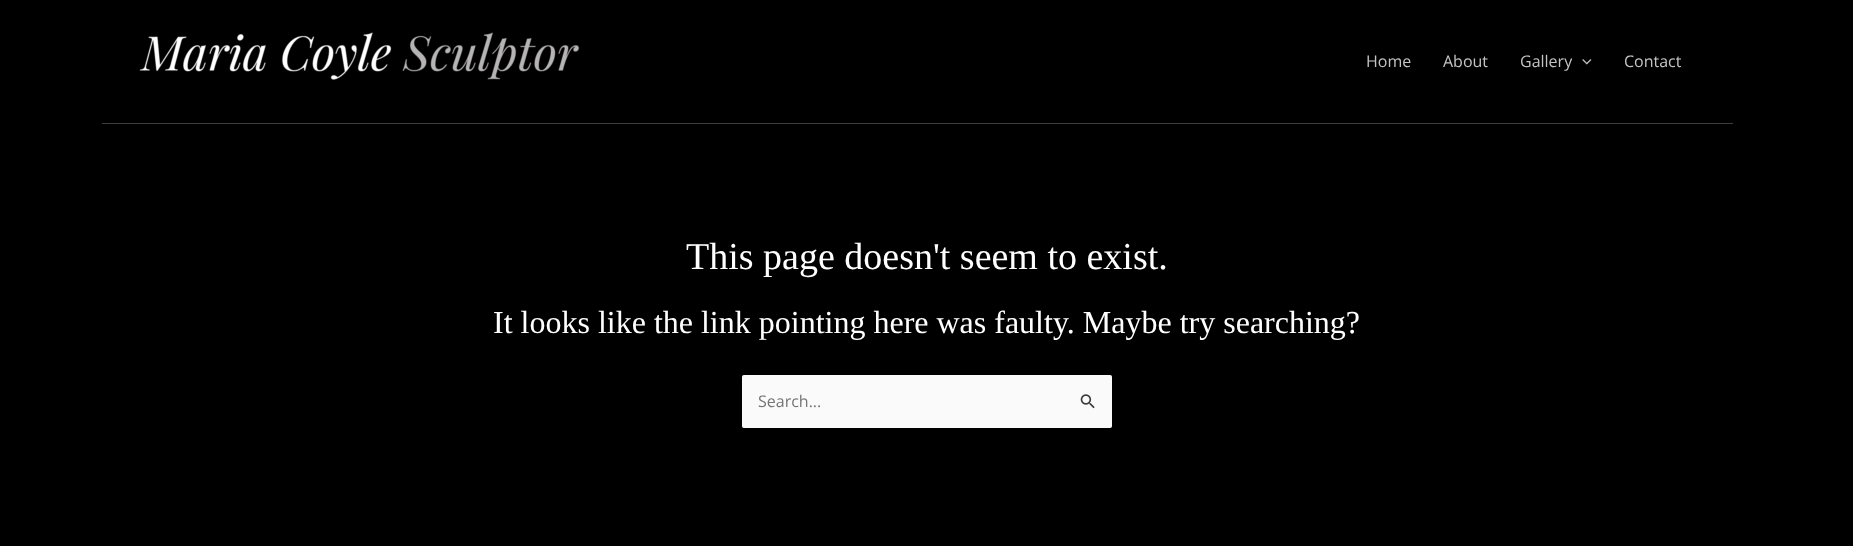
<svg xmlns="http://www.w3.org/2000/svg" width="1853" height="546">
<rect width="100%" height="100%" fill="#000"/>
<rect x="102" y="123" width="1631" height="1" fill="#3d3d3d"/>
<image x="139" y="32" width="441" height="48" href="media/1.png"/>
<text x="1366" y="67" style="font-family:Open Sans;font-size:16px;fill:#c4c4c4">Home</text>
<text x="1443" y="67" style="font-family:Open Sans;font-size:16px;fill:#c4c4c4">About</text>
<text x="1520" y="67" style="font-family:Open Sans;font-size:16px;fill:#c4c4c4">Gallery</text>
<image x="1582" y="59" width="10" height="6" href="media/2.png"/>
<text x="1624" y="67" style="font-family:Open Sans;font-size:16px;fill:#c4c4c4">Contact</text>
<text x="686" y="269" style="font-family:Liberation Serif;font-size:38px;fill:#fff">This page doesn't seem to exist.</text>
<text x="493" y="333" style="font-family:Liberation Serif;font-size:32px;fill:#fff">It looks like the link pointing here was faulty. Maybe try searching?</text>
<rect x="742" y="375" width="370" height="53" rx="2" fill="#fafafa"/>
<rect x="742.5" y="375.5" width="369" height="52" rx="1.5" fill="none" stroke="#ffffff3d"/>
<text x="758" y="407" style="font-family:Open Sans;font-size:16px;fill:#757575">Search...</text>
<image x="1080" y="394" width="15" height="15" href="media/3.png"/>
</svg>
